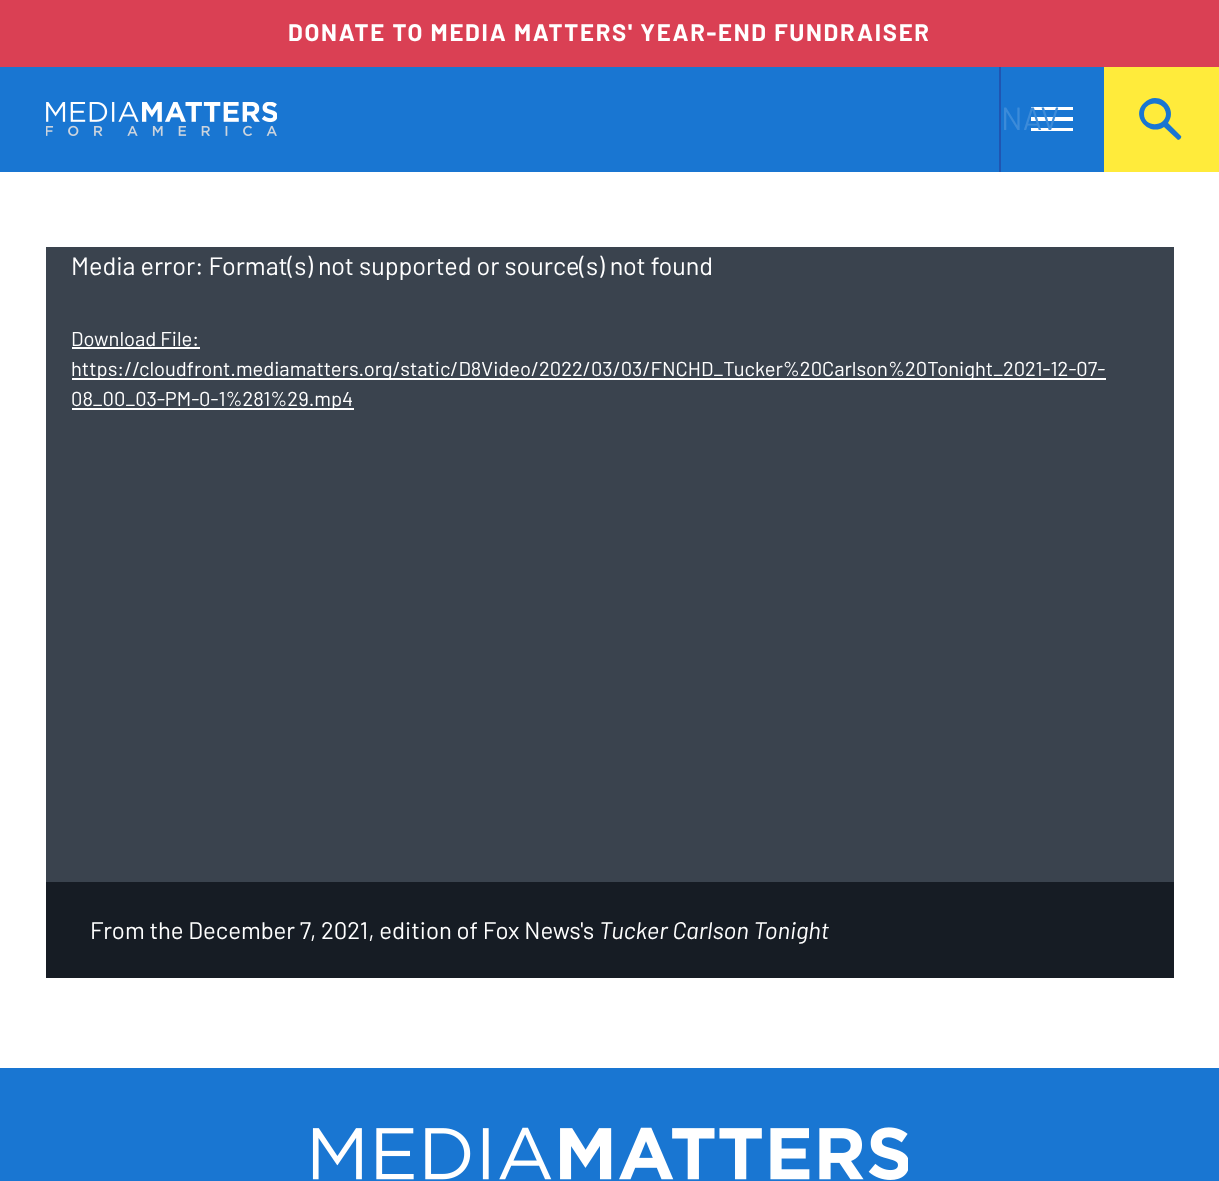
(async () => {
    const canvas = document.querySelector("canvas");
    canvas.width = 1219;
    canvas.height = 1181;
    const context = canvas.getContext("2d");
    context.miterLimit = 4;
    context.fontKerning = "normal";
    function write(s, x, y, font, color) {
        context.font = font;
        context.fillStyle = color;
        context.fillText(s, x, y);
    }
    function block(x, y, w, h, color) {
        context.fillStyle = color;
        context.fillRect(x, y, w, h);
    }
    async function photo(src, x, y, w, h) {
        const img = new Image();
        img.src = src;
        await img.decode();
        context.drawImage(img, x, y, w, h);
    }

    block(0, 0, 1219, 1181, "rgb(255, 255, 255)");
    block(0, 0, 1219, 67, "rgb(218, 64, 84)");
    context.letterSpacing = "1.75px";
    write("DONATE TO MEDIA MATTERS' YEAR-END FUNDRAISER", 288, 41, "bold 23.9px Barlow", "rgb(255, 255, 255)");
    block(0, 67, 1104, 105, "rgb(25, 118, 210)");
    await photo("media/1.png", 46, 102, 231, 34);
    context.fillStyle = "rgb(255, 255, 255)";
    context.beginPath();
    context.moveTo(1031, 107);
    context.lineTo(1073, 107);
    context.lineTo(1073, 110);
    context.lineTo(1031, 110);
    context.closePath();
    context.moveTo(1031, 117);
    context.lineTo(1073, 117);
    context.lineTo(1073, 121);
    context.lineTo(1031, 121);
    context.closePath();
    context.moveTo(1031, 128);
    context.lineTo(1073, 128);
    context.lineTo(1073, 131);
    context.lineTo(1031, 131);
    context.closePath();
    context.fill("evenodd");
    block(999, 67, 2, 105, "rgb(32, 85, 178)");
    context.letterSpacing = "0px";
    write("NAV", 1001, 130, "32px Barlow", "rgb(60, 139, 217)");
    block(1104, 67, 115, 105, "rgb(255, 235, 59)");
    context.fillStyle = "rgb(25, 118, 210)";
    context.beginPath();
    context.moveTo(1144, 114);
    context.bezierCurveTo(1144, 100, 1165, 100, 1166, 114);
    context.bezierCurveTo(1166, 127, 1144, 128, 1144, 114);
    context.moveTo(1181, 136);
    context.lineTo(1168, 123);
    context.bezierCurveTo(1179, 108, 1158, 89, 1144, 103);
    context.bezierCurveTo(1130, 116, 1149, 137, 1164, 127);
    context.lineTo(1178, 140);
    context.bezierCurveTo(1180, 140, 1182, 137, 1181, 136);
    context.fill("evenodd");
    block(46, 247, 1128, 635, "rgb(58, 67, 78)");
    write("Media error: Format(s) not supported or source(s) not found", 71, 275, "25.2px Barlow", "rgb(255, 255, 255)");
    write("Download File:", 71, 346, "20.15px Barlow", "rgb(255, 255, 255)");
    block(72, 347, 128, 2, "rgb(255, 255, 255)");
    block(72, 378, 1034, 2, "rgb(255, 255, 255)");
    write("https://cloudfront.mediamatters.org/static/D8Video/2022/03/03/FNCHD_Tucker%20Carlson%20Tonight_2021-12-07-", 71, 376, "20.15px Barlow", "rgb(255, 255, 255)");
    block(72, 408, 282, 2, "rgb(255, 255, 255)");
    write("08_00_03-PM-0-1%281%29.mp4", 71, 406, "20.15px Barlow", "rgb(255, 255, 255)");
    block(46, 882, 1128, 96, "rgb(22, 28, 36)");
    write("From the December 7, 2021, edition of Fox News's", 90, 939, "23.9px Barlow", "rgb(255, 255, 255)");
    write("Tucker Carlson Tonight", 599, 939, "italic 23.9px Barlow", "rgb(255, 255, 255)");
    block(0, 1068, 1219, 113, "rgb(25, 118, 210)");
    await photo("media/2.png", 312, 1127, 596, 53);
})();
